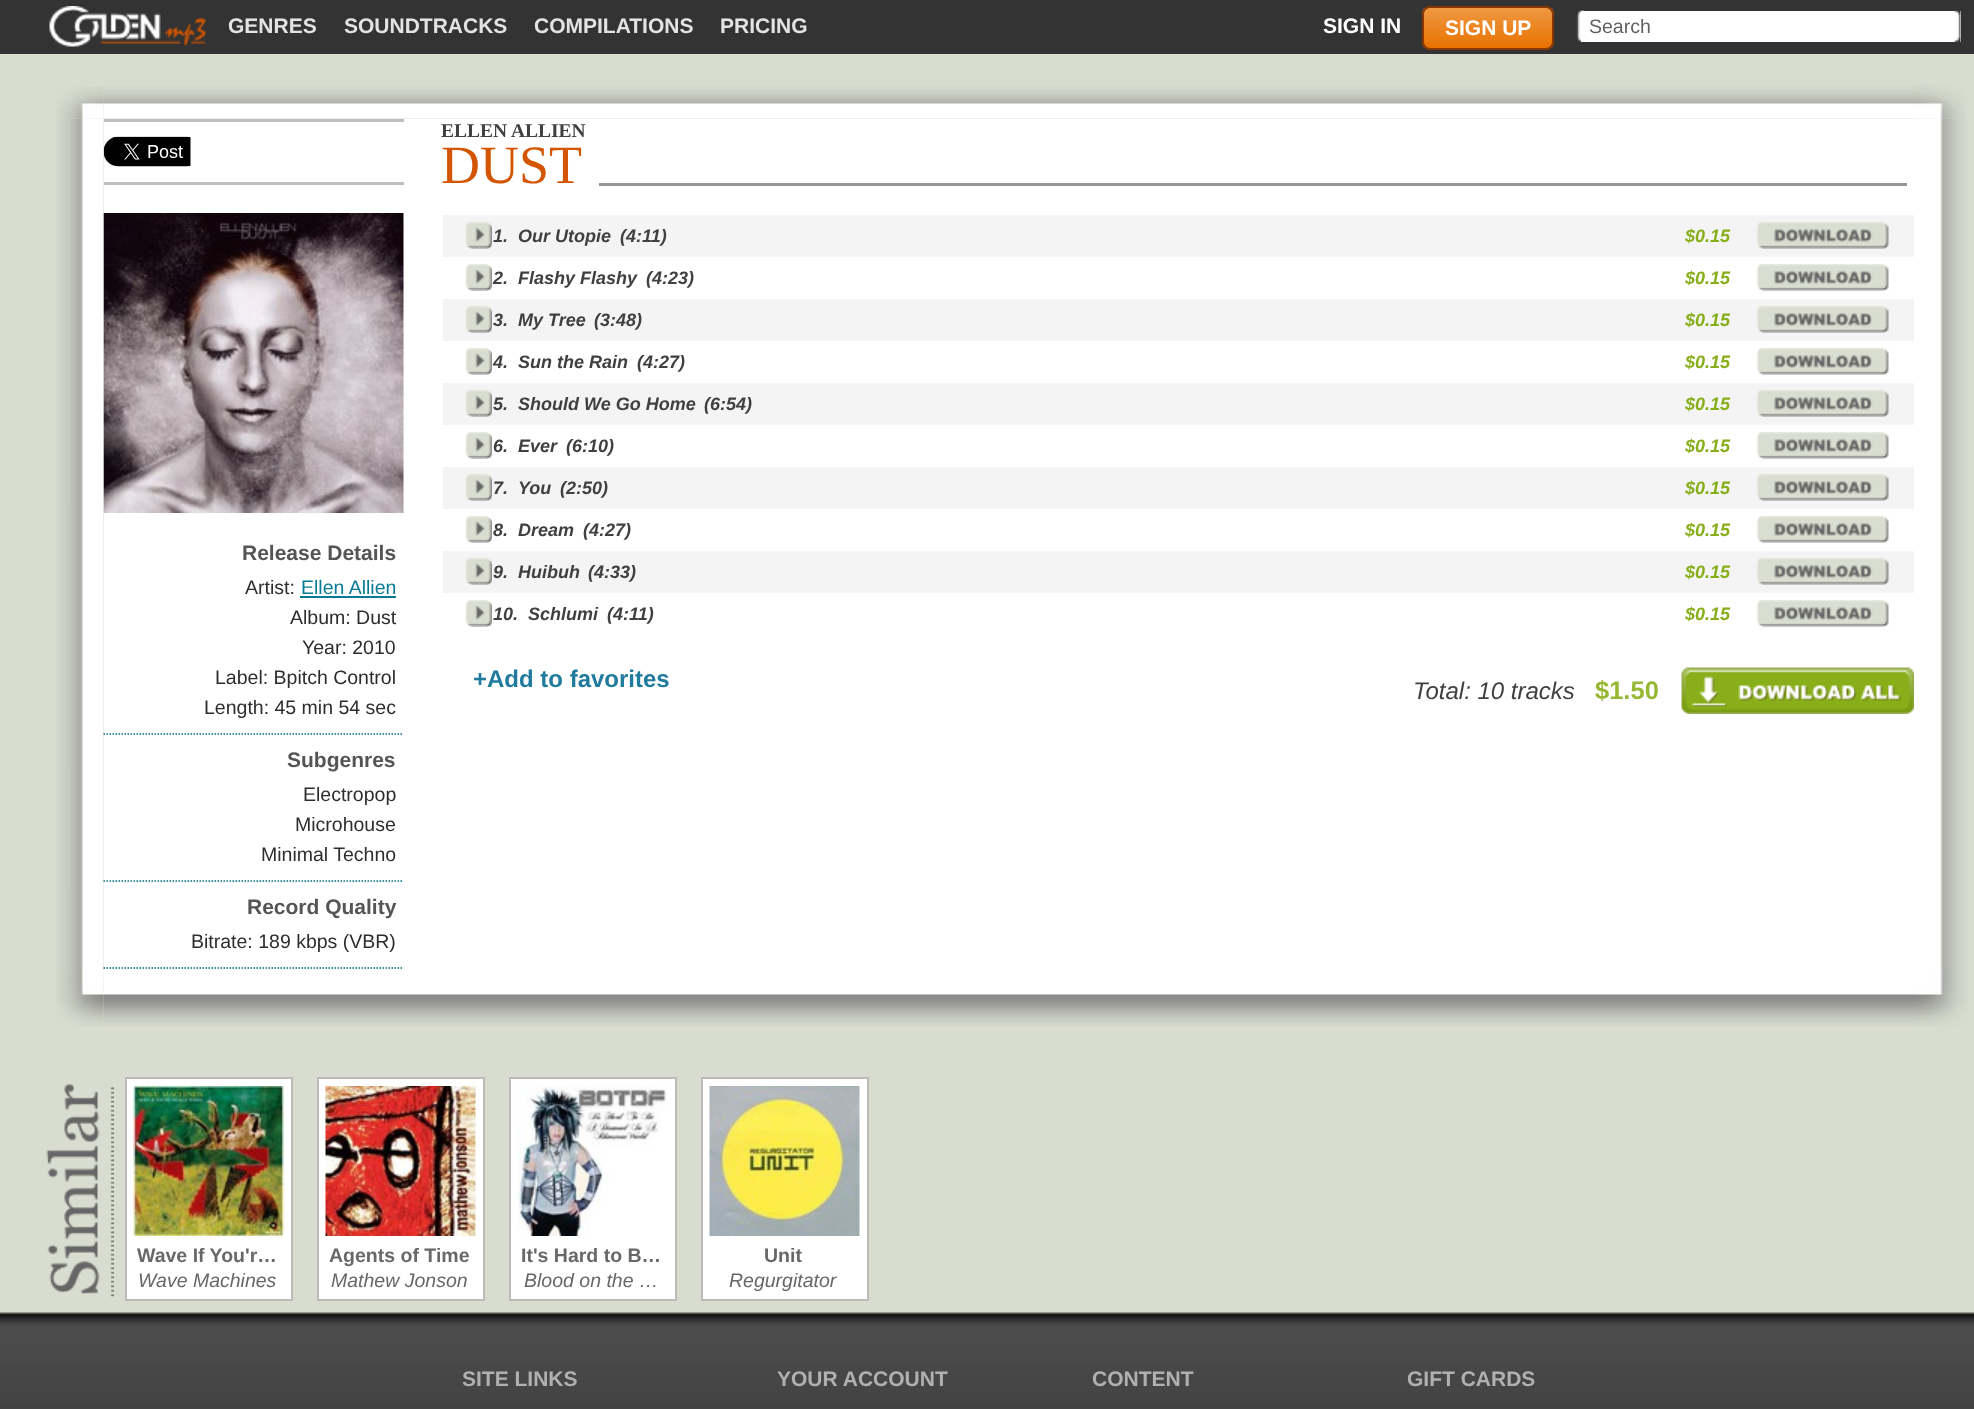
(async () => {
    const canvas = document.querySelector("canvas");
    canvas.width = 1974;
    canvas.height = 1409;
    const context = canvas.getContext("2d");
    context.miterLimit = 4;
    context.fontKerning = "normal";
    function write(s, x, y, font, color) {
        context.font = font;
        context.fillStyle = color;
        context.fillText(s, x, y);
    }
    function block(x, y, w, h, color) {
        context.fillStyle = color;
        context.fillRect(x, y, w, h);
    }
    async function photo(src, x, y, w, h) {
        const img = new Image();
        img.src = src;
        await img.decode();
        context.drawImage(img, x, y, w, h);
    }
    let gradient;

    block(0, 0, 1974, 1409, "rgb(217, 221, 207)");
    block(0, 0, 1974, 54, "rgb(51, 51, 51)");
    await photo("media/1.png", 49, 6, 157, 41);
    write("GENRES", 228, 33, "bold 21px Liberation Sans", "rgb(227, 227, 227)");
    write("SOUNDTRACKS", 344, 33, "bold 21px Liberation Sans", "rgb(227, 227, 227)");
    write("COMPILATIONS", 534, 33, "bold 21px Liberation Sans", "rgb(227, 227, 227)");
    write("PRICING", 720, 33, "bold 21px Liberation Sans", "rgb(227, 227, 227)");
    write("SIGN IN", 1323, 33, "bold 21px Liberation Sans", "rgb(255, 255, 255)");
    context.save();
    context.beginPath();
    context.roundRect(1422, 6, 132, 44, 8);
    context.clip();
    gradient = context.createLinearGradient(1488, 7.5, 1488, 48);
    gradient.addColorStop(0, "rgb(239, 152, 67)");
    gradient.addColorStop(1, "rgb(233, 115, 0)");
    context.fillStyle = gradient;
    context.fillRect(1422, 8, 132, 40);
    context.restore();
    context.beginPath();
    context.roundRect(1423, 7, 130, 42, 7);
    context.strokeStyle = "rgb(136, 55, 2)";
    context.lineWidth = 2;
    context.stroke();
    write("SIGN UP", 1445, 35, "bold 21px Liberation Sans", "rgb(255, 255, 255)");
    await photo("media/2.png", 1576, 10, 9, 32);
    block(1581, 11, 380, 31, "rgb(255, 255, 255)");
    await photo("media/3.png", 1954, 10, 7, 32);
    write("Search", 1589, 33, "19.5px Liberation Sans", "rgb(98, 97, 97)");
    await photo("media/4.png", 56, 86, 48, 33);
    await photo("media/5.png", 103, 86, 1811, 33);
    await photo("media/6.png", 1914, 84, 53, 35);
    await photo("media/7.png", 56, 118, 48, 851);
    block(104, 119, 1810, 850, "rgb(255, 255, 255)");
    block(104, 119, 300, 3, "rgb(190, 190, 190)");
    block(104, 182, 300, 3, "rgb(190, 190, 190)");
    await photo("media/8.png", 103, 136, 88, 31);
    write("ELLEN ALLIEN", 441, 137, "bold 19.5px Liberation Serif", "rgb(65, 63, 63)");
    write("DUST", 441, 183, "54px Liberation Serif", "rgb(212, 85, 0)");
    block(599, 183, 1308, 3, "rgb(150, 150, 150)");
    block(443, 215, 1471, 42, "rgb(244, 244, 244)");
    await photo("media/9.png", 465, 222, 27, 27);
    write("1.", 493, 242, "italic bold 18px Liberation Sans", "rgb(65, 63, 63)");
    write("Our Utopie", 518, 242, "italic bold 18px Liberation Sans", "rgb(65, 63, 63)");
    write("(4:11)", 620, 242, "italic bold 18px Liberation Sans", "rgb(65, 63, 63)");
    write("$0.15", 1685, 242, "italic bold 18px Liberation Sans", "rgb(136, 175, 25)");
    await photo("media/10.png", 1756, 222, 133, 27);
    await photo("media/11.png", 465, 264, 27, 27);
    write("2.", 493, 284, "italic bold 18px Liberation Sans", "rgb(65, 63, 63)");
    write("Flashy Flashy", 518, 284, "italic bold 18px Liberation Sans", "rgb(65, 63, 63)");
    write("(4:23)", 646, 284, "italic bold 18px Liberation Sans", "rgb(65, 63, 63)");
    write("$0.15", 1685, 284, "italic bold 18px Liberation Sans", "rgb(136, 175, 25)");
    await photo("media/12.png", 1756, 264, 133, 27);
    block(443, 299, 1471, 42, "rgb(244, 244, 244)");
    await photo("media/9.png", 465, 306, 27, 27);
    write("3.", 493, 326, "italic bold 18px Liberation Sans", "rgb(65, 63, 63)");
    write("My Tree", 518, 326, "italic bold 18px Liberation Sans", "rgb(65, 63, 63)");
    write("(3:48)", 594, 326, "italic bold 18px Liberation Sans", "rgb(65, 63, 63)");
    write("$0.15", 1685, 326, "italic bold 18px Liberation Sans", "rgb(136, 175, 25)");
    await photo("media/10.png", 1756, 306, 133, 27);
    await photo("media/11.png", 465, 348, 27, 27);
    write("4.", 493, 368, "italic bold 18px Liberation Sans", "rgb(65, 63, 63)");
    write("Sun the Rain", 518, 368, "italic bold 18px Liberation Sans", "rgb(65, 63, 63)");
    write("(4:27)", 637, 368, "italic bold 18px Liberation Sans", "rgb(65, 63, 63)");
    write("$0.15", 1685, 368, "italic bold 18px Liberation Sans", "rgb(136, 175, 25)");
    await photo("media/12.png", 1756, 348, 133, 27);
    block(443, 383, 1471, 42, "rgb(244, 244, 244)");
    await photo("media/9.png", 465, 390, 27, 27);
    write("5.", 493, 410, "italic bold 18px Liberation Sans", "rgb(65, 63, 63)");
    write("Should We Go Home", 518, 410, "italic bold 18px Liberation Sans", "rgb(65, 63, 63)");
    write("(6:54)", 704, 410, "italic bold 18px Liberation Sans", "rgb(65, 63, 63)");
    write("$0.15", 1685, 410, "italic bold 18px Liberation Sans", "rgb(136, 175, 25)");
    await photo("media/10.png", 1756, 390, 133, 27);
    await photo("media/11.png", 465, 432, 27, 27);
    write("6.", 493, 452, "italic bold 18px Liberation Sans", "rgb(65, 63, 63)");
    write("Ever", 518, 452, "italic bold 18px Liberation Sans", "rgb(65, 63, 63)");
    write("(6:10)", 566, 452, "italic bold 18px Liberation Sans", "rgb(65, 63, 63)");
    write("$0.15", 1685, 452, "italic bold 18px Liberation Sans", "rgb(136, 175, 25)");
    await photo("media/12.png", 1756, 432, 133, 27);
    block(443, 467, 1471, 42, "rgb(244, 244, 244)");
    await photo("media/9.png", 465, 474, 27, 27);
    write("7.", 493, 494, "italic bold 18px Liberation Sans", "rgb(65, 63, 63)");
    write("You", 518, 494, "italic bold 18px Liberation Sans", "rgb(65, 63, 63)");
    write("(2:50)", 560, 494, "italic bold 18px Liberation Sans", "rgb(65, 63, 63)");
    write("$0.15", 1685, 494, "italic bold 18px Liberation Sans", "rgb(136, 175, 25)");
    await photo("media/10.png", 1756, 474, 133, 27);
    await photo("media/11.png", 465, 516, 27, 27);
    write("8.", 493, 536, "italic bold 18px Liberation Sans", "rgb(65, 63, 63)");
    write("Dream", 518, 536, "italic bold 18px Liberation Sans", "rgb(65, 63, 63)");
    write("(4:27)", 583, 536, "italic bold 18px Liberation Sans", "rgb(65, 63, 63)");
    write("$0.15", 1685, 536, "italic bold 18px Liberation Sans", "rgb(136, 175, 25)");
    await photo("media/12.png", 1756, 516, 133, 27);
    block(443, 551, 1471, 42, "rgb(244, 244, 244)");
    await photo("media/9.png", 465, 558, 27, 27);
    write("9.", 493, 578, "italic bold 18px Liberation Sans", "rgb(65, 63, 63)");
    write("Huibuh", 518, 578, "italic bold 18px Liberation Sans", "rgb(65, 63, 63)");
    write("(4:33)", 588, 578, "italic bold 18px Liberation Sans", "rgb(65, 63, 63)");
    write("$0.15", 1685, 578, "italic bold 18px Liberation Sans", "rgb(136, 175, 25)");
    await photo("media/10.png", 1756, 558, 133, 27);
    await photo("media/11.png", 465, 600, 27, 27);
    write("10.", 493, 620, "italic bold 18px Liberation Sans", "rgb(65, 63, 63)");
    write("Schlumi", 528, 620, "italic bold 18px Liberation Sans", "rgb(65, 63, 63)");
    write("(4:11)", 607, 620, "italic bold 18px Liberation Sans", "rgb(65, 63, 63)");
    write("$0.15", 1685, 620, "italic bold 18px Liberation Sans", "rgb(136, 175, 25)");
    await photo("media/12.png", 1756, 600, 133, 27);
    write("+Add to favorites", 473, 687, "bold 24px Liberation Sans", "rgb(32, 123, 159)");
    write("Total: 10 tracks", 1413, 699, "italic 24px Liberation Sans", "rgb(65, 63, 63)");
    write("$1.50", 1595, 699, "bold 25.5px Liberation Sans", "rgb(150, 184, 51)");
    await photo("media/13.png", 1681, 667, 233, 47);
    await photo("media/14.png", 103, 213, 301, 300);
    context.beginPath();
    context.moveTo(103.5, 734);
    context.lineTo(403.5, 734);
    context.strokeStyle = "rgb(0, 107, 136)";
    context.lineWidth = 1.5;
    context.setLineDash([1.5, 1.5]);
    context.stroke();
    write("Release Details", 242, 560, "bold 21px Liberation Sans", "rgb(85, 85, 85)");
    write("Artist:", 245, 594, "19.5px Liberation Sans", "rgb(45, 45, 45)");
    write("Ellen Allien", 301, 594, "19.5px Liberation Sans", "rgb(7, 123, 149)");
    block(300, 596, 96, 2, "rgb(7, 123, 149)");
    write("Album: Dust", 290, 624, "19.5px Liberation Sans", "rgb(45, 45, 45)");
    write("Year: 2010", 302, 654, "19.5px Liberation Sans", "rgb(45, 45, 45)");
    write("Label: Bpitch Control", 215, 684, "19.5px Liberation Sans", "rgb(45, 45, 45)");
    write("Length: 45 min 54 sec", 204, 714, "19.5px Liberation Sans", "rgb(45, 45, 45)");
    context.beginPath();
    context.moveTo(103.5, 881);
    context.lineTo(403.5, 881);
    context.stroke();
    write("Subgenres", 287, 767, "bold 21px Liberation Sans", "rgb(85, 85, 85)");
    write("Electropop", 303, 801, "19.5px Liberation Sans", "rgb(45, 45, 45)");
    write("Microhouse", 295, 831, "19.5px Liberation Sans", "rgb(45, 45, 45)");
    write("Minimal Techno", 261, 861, "19.5px Liberation Sans", "rgb(45, 45, 45)");
    context.beginPath();
    context.moveTo(103.5, 968);
    context.lineTo(403.5, 968);
    context.stroke();
    write("Record Quality", 247, 914, "bold 21px Liberation Sans", "rgb(85, 85, 85)");
    write("Bitrate: 189 kbps (VBR)", 191, 948, "19.5px Liberation Sans", "rgb(45, 45, 45)");
    await photo("media/15.png", 1914, 118, 54, 851);
    await photo("media/16.png", 56, 969, 48, 58);
    await photo("media/17.png", 103, 969, 1811, 58);
    await photo("media/18.png", 1914, 969, 54, 58);
    await photo("media/19.png", 46, 1084, 68, 213);
    context.fillStyle = "rgb(255, 255, 255)";
    context.beginPath();
    context.rect(126, 1078, 166, 222);
    context.fill();
    context.strokeStyle = "rgb(190, 186, 186)";
    context.lineWidth = 2;
    context.setLineDash([]);
    context.stroke();
    await photo("media/20.png", 133, 1086, 151, 150);
    write("Wave If You'r…", 137, 1262, "bold 19.5px Liberation Sans", "rgb(105, 103, 103)");
    write("Wave Machines", 138, 1287, "italic 19.5px Liberation Sans", "rgb(105, 103, 103)");
    context.fillStyle = "rgb(255, 255, 255)";
    context.beginPath();
    context.rect(318, 1078, 166, 222);
    context.fill();
    context.stroke();
    await photo("media/21.png", 325, 1086, 151, 150);
    write("Agents of Time", 329, 1262, "bold 19.5px Liberation Sans", "rgb(105, 103, 103)");
    write("Mathew Jonson", 331, 1287, "italic 19.5px Liberation Sans", "rgb(105, 103, 103)");
    context.fillStyle = "rgb(255, 255, 255)";
    context.beginPath();
    context.rect(510, 1078, 166, 222);
    context.fill();
    context.stroke();
    await photo("media/22.png", 517, 1086, 150, 150);
    write("It's Hard to B…", 521, 1262, "bold 19.5px Liberation Sans", "rgb(105, 103, 103)");
    write("Blood on the …", 524, 1287, "italic 19.5px Liberation Sans", "rgb(105, 103, 103)");
    context.fillStyle = "rgb(255, 255, 255)";
    context.beginPath();
    context.rect(702, 1078, 166, 222);
    context.fill();
    context.stroke();
    await photo("media/23.png", 709, 1086, 151, 150);
    write("Unit", 764, 1262, "bold 19.5px Liberation Sans", "rgb(105, 103, 103)");
    write("Regurgitator", 729, 1287, "italic 19.5px Liberation Sans", "rgb(105, 103, 103)");
    await photo("media/24.png", 0, 1312, 1974, 97);
    write("SITE LINKS", 462, 1386, "bold 21px Liberation Sans", "rgb(177, 175, 175)");
    write("YOUR ACCOUNT", 777, 1386, "bold 21px Liberation Sans", "rgb(177, 175, 175)");
    write("CONTENT", 1092, 1386, "bold 21px Liberation Sans", "rgb(177, 175, 175)");
    write("GIFT CARDS", 1407, 1386, "bold 21px Liberation Sans", "rgb(177, 175, 175)");
})();
